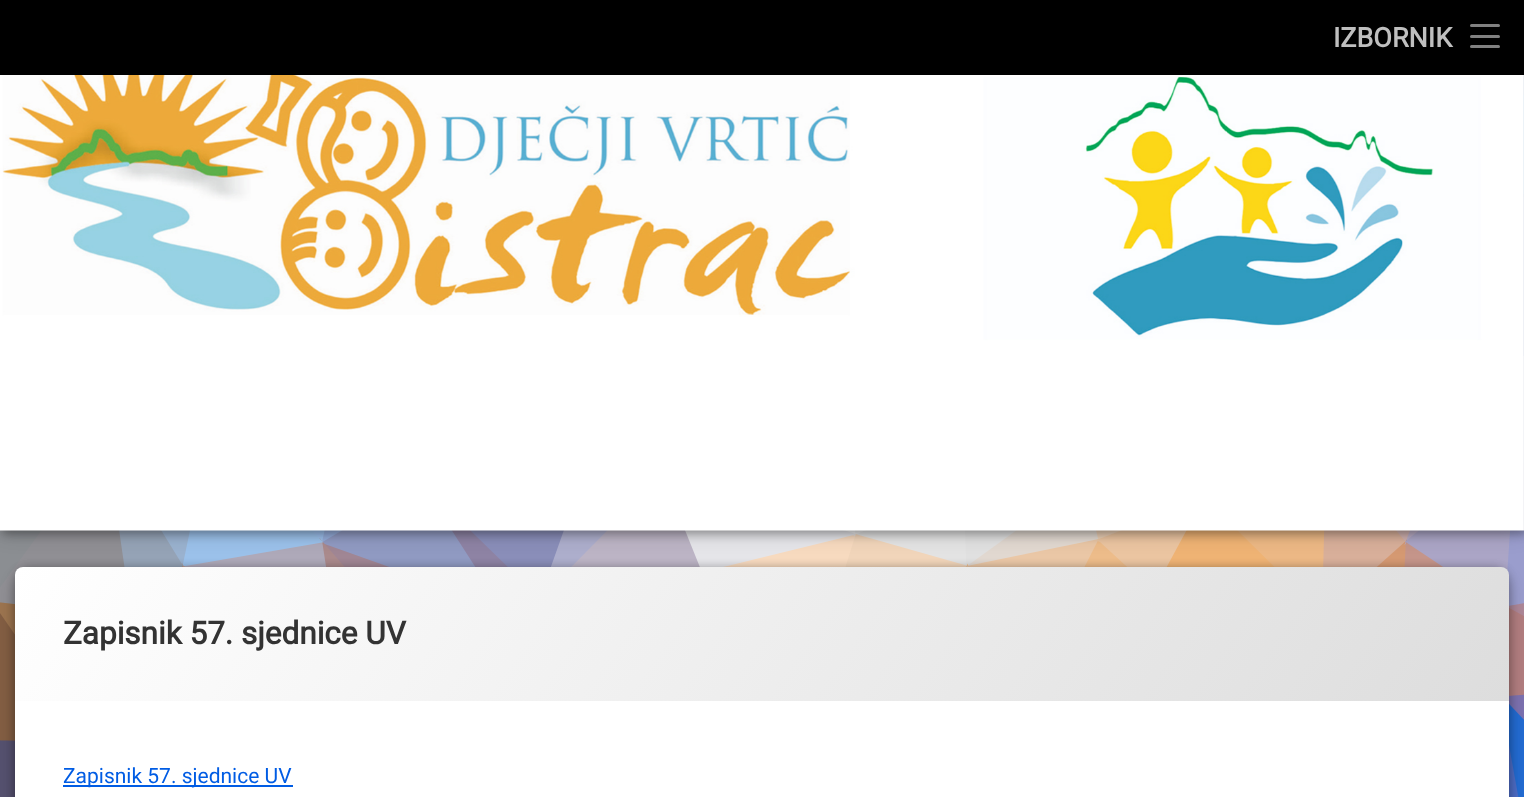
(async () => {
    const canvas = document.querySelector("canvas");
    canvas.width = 1524;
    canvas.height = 797;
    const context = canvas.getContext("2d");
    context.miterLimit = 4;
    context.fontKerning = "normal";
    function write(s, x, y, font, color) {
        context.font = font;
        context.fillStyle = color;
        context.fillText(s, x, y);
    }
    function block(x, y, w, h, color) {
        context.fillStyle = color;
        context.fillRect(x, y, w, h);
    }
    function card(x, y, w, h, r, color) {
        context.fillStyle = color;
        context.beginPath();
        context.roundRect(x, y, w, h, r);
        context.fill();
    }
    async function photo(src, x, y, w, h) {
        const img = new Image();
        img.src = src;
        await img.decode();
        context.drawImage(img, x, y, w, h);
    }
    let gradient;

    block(0, 0, 1524, 797, "rgb(255, 255, 255)");
    await photo("media/2.png", 0, 75, 1524, 722);
    context.fillStyle = "rgba(0, 0, 0, 0.3)";
    context.filter = "blur(5px)";
    context.beginPath();
    context.rect(3, 56, 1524, 478);
    context.fill();
    context.filter = "none";
    context.fillStyle = "rgba(0, 0, 0, 0.2)";
    context.filter = "blur(11px)";
    context.beginPath();
    context.rect(0, 53, 1524, 478);
    context.fill();
    context.filter = "none";
    block(0, 0, 1524, 75, "rgb(0, 0, 0)");
    write("IZBORNIK", 1333, 47, "bold 27px Roboto", "rgb(191, 191, 191)");
    card(1470, 24, 30, 3, 1.5, "rgb(128, 128, 128)");
    card(1470, 35, 30, 3, 1.5, "rgb(128, 128, 128)");
    card(1470, 45, 30, 3, 1.5, "rgb(128, 128, 128)");
    await photo("media/1.png", 0, 75, 1524, 456);
    context.fillStyle = "rgba(0, 0, 0, 0.25)";
    context.filter = "blur(4px)";
    context.beginPath();
    context.roundRect(15, 567, 1494, 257, 15);
    context.fill();
    context.filter = "none";
    context.filter = "blur(7.5px)";
    context.beginPath();
    context.roundRect(15, 575, 1494, 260, 15);
    context.fill();
    context.filter = "none";
    context.fillStyle = "rgb(255, 255, 255)";
    context.beginPath();
    context.moveTo(30, 567);
    context.lineTo(1494, 567);
    context.bezierCurveTo(1502.5, 567, 1509, 573.5, 1509, 582);
    context.lineTo(1509, 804);
    context.bezierCurveTo(1509, 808.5, 1505.5, 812, 1501, 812);
    context.lineTo(23, 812);
    context.bezierCurveTo(18.5, 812, 15, 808.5, 15, 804);
    context.lineTo(15, 582);
    context.bezierCurveTo(15, 573.5, 21.5, 567, 30, 567);
    context.closePath();
    context.fill();
    gradient = context.createLinearGradient(229, 261, 1295, 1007);
    gradient.addColorStop(0, "rgb(255, 255, 255)");
    gradient.addColorStop(1, "rgb(221, 221, 221)");
    context.fillStyle = gradient;
    context.beginPath();
    context.roundRect(15, 567, 1494, 134, [8, 8, 0, 0]);
    context.fill();
    write("Zapisnik 57. sjednice UV", 63, 644, "bold 31.5px Roboto", "rgb(51, 51, 51)");
    block(63, 785, 230, 2, "rgb(0, 92, 228)");
    write("Zapisnik 57. sjednice UV", 63, 783, "21px Roboto", "rgb(0, 92, 228)");
})();
